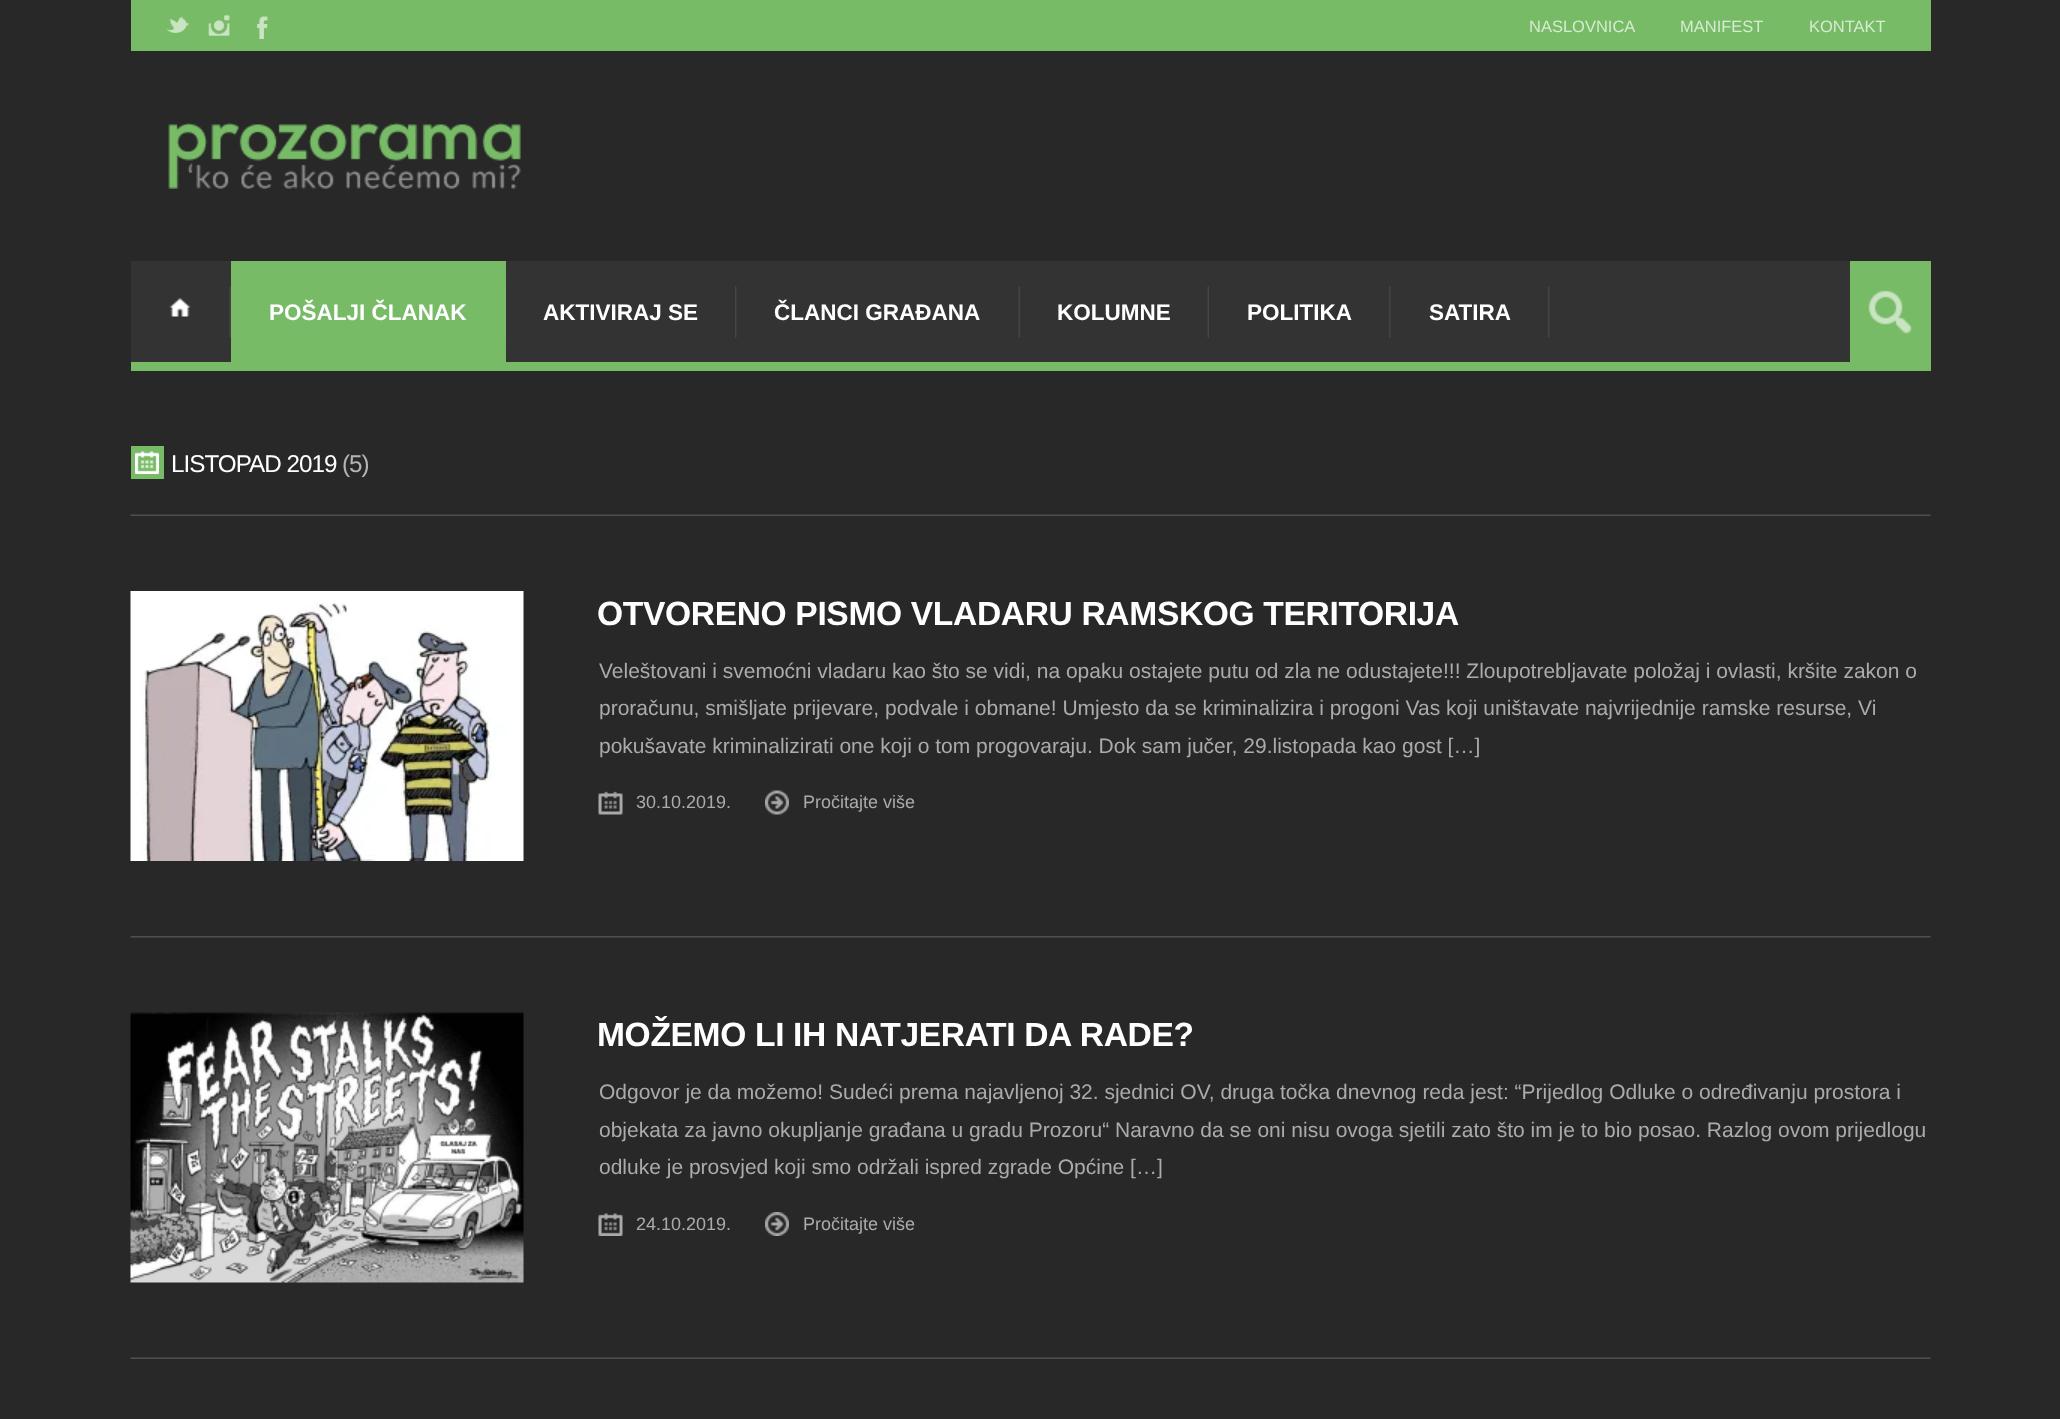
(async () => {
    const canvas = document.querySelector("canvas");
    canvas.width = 2060;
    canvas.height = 1419;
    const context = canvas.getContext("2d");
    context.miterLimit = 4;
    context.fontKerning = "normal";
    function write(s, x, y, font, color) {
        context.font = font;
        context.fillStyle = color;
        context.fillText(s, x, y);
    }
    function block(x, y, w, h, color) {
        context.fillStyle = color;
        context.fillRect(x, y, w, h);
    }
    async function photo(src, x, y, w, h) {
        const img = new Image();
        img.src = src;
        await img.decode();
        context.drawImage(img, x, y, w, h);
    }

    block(0, 0, 2060, 1419, "rgb(40, 40, 40)");
    block(131, 0, 1800, 51, "rgb(119, 187, 102)");
    await photo("media/1.png", 166, 17, 23, 16);
    await photo("media/2.png", 208, 15, 22, 21);
    await photo("media/3.png", 256, 16, 12, 23);
    write("NASLOVNICA", 1529, 32, "16.5px Liberation Sans", "rgb(214, 235, 209)");
    write("MANIFEST", 1680, 32, "16.5px Liberation Sans", "rgb(214, 235, 209)");
    write("KONTAKT", 1809, 32, "16.5px Liberation Sans", "rgb(214, 235, 209)");
    await photo("media/4.png", 168, 123, 353, 66);
    block(131, 261, 1719, 101, "rgb(51, 51, 51)");
    block(131, 362, 1800, 9, "rgb(119, 187, 102)");
    await photo("media/5.png", 229, 286, 2, 52);
    await photo("media/6.png", 169, 298, 22, 19);
    block(231, 261, 275, 101, "rgb(119, 187, 102)");
    await photo("media/7.png", 504, 286, 2, 52);
    write("POŠALJI ČLANAK", 269, 320, "bold 22.5px Liberation Sans", "rgb(255, 255, 255)");
    await photo("media/8.png", 735, 286, 2, 52);
    write("AKTIVIRAJ SE", 543, 320, "bold 22.5px Liberation Sans", "rgb(255, 255, 255)");
    await photo("media/5.png", 1018, 286, 2, 52);
    write("ČLANCI GRAĐANA", 774, 320, "bold 22.5px Liberation Sans", "rgb(255, 255, 255)");
    await photo("media/5.png", 1207, 286, 2, 52);
    write("KOLUMNE", 1057, 320, "bold 22.5px Liberation Sans", "rgb(255, 255, 255)");
    await photo("media/8.png", 1389, 286, 2, 52);
    write("POLITIKA", 1247, 320, "bold 22.5px Liberation Sans", "rgb(255, 255, 255)");
    await photo("media/8.png", 1548, 286, 2, 52);
    write("SATIRA", 1429, 320, "bold 22.5px Liberation Sans", "rgb(255, 255, 255)");
    block(1850, 261, 81, 101, "rgb(119, 187, 102)");
    await photo("media/9.png", 1868, 290, 44, 44);
    await photo("media/10.png", 130, 514, 1801, 2);
    block(131, 446, 33, 33, "rgb(119, 187, 102)");
    await photo("media/11.png", 135, 451, 24, 23);
    context.letterSpacing = "-1px";
    write("LISTOPAD 2019", 171, 472, "24.25px Liberation Sans", "rgb(255, 255, 255)");
    write("(5)", 342, 472, "24.25px Liberation Sans", "rgb(180, 180, 180)");
    await photo("media/12.png", 130, 936, 1801, 2);
    await photo("media/13.png", 130, 591, 394, 270);
    context.letterSpacing = "-0.35px";
    write("OTVORENO PISMO VLADARU RAMSKOG TERITORIJA", 597, 625, "bold 33.6px Liberation Sans", "rgb(255, 255, 255)");
    context.letterSpacing = "0px";
    write("Veleštovani i svemoćni vladaru kao što se vidi, na opaku ostajete putu od zla ne odustajete!!! Zloupotrebljavate položaj i ovlasti, kršite zakon o", 599, 678, "21px Liberation Sans", "rgb(171, 171, 171)");
    write("proračunu, smišljate prijevare, podvale i obmane! Umjesto da se kriminalizira i progoni Vas koji uništavate najvrijednije ramske resurse, Vi", 599, 715, "21px Liberation Sans", "rgb(171, 171, 171)");
    write("pokušavate kriminalizirati one koji o tom progovaraju. Dok sam jučer, 29.listopada kao gost […]", 599, 753, "21px Liberation Sans", "rgb(171, 171, 171)");
    await photo("media/14.png", 598, 791, 25, 24);
    write("30.10.2019.", 636, 808, "18px Liberation Sans", "rgb(171, 171, 171)");
    await photo("media/15.png", 765, 790, 24, 25);
    write("Pročitajte više", 803, 808, "18px Liberation Sans", "rgb(171, 171, 171)");
    await photo("media/10.png", 130, 1357, 1801, 2);
    await photo("media/16.png", 130, 1012, 394, 271);
    context.letterSpacing = "-0.35px";
    write("MOŽEMO LI IH NATJERATI DA RADE?", 597, 1046, "bold 33.6px Liberation Sans", "rgb(255, 255, 255)");
    context.letterSpacing = "0px";
    write("Odgovor je da možemo! Sudeći prema najavljenoj 32. sjednici OV, druga točka dnevnog reda jest: “Prijedlog Odluke o određivanju prostora i", 599, 1099, "21px Liberation Sans", "rgb(171, 171, 171)");
    write("objekata za javno okupljanje građana u gradu Prozoru“ Naravno da se oni nisu ovoga sjetili zato što im je to bio posao. Razlog ovom prijedlogu", 599, 1137, "21px Liberation Sans", "rgb(171, 171, 171)");
    write("odluke je prosvjed koji smo održali ispred zgrade Općine […]", 599, 1174, "21px Liberation Sans", "rgb(171, 171, 171)");
    await photo("media/17.png", 598, 1213, 25, 23);
    write("24.10.2019.", 636, 1230, "18px Liberation Sans", "rgb(171, 171, 171)");
    await photo("media/18.png", 765, 1212, 24, 24);
    write("Pročitajte više", 803, 1230, "18px Liberation Sans", "rgb(171, 171, 171)");
})();
